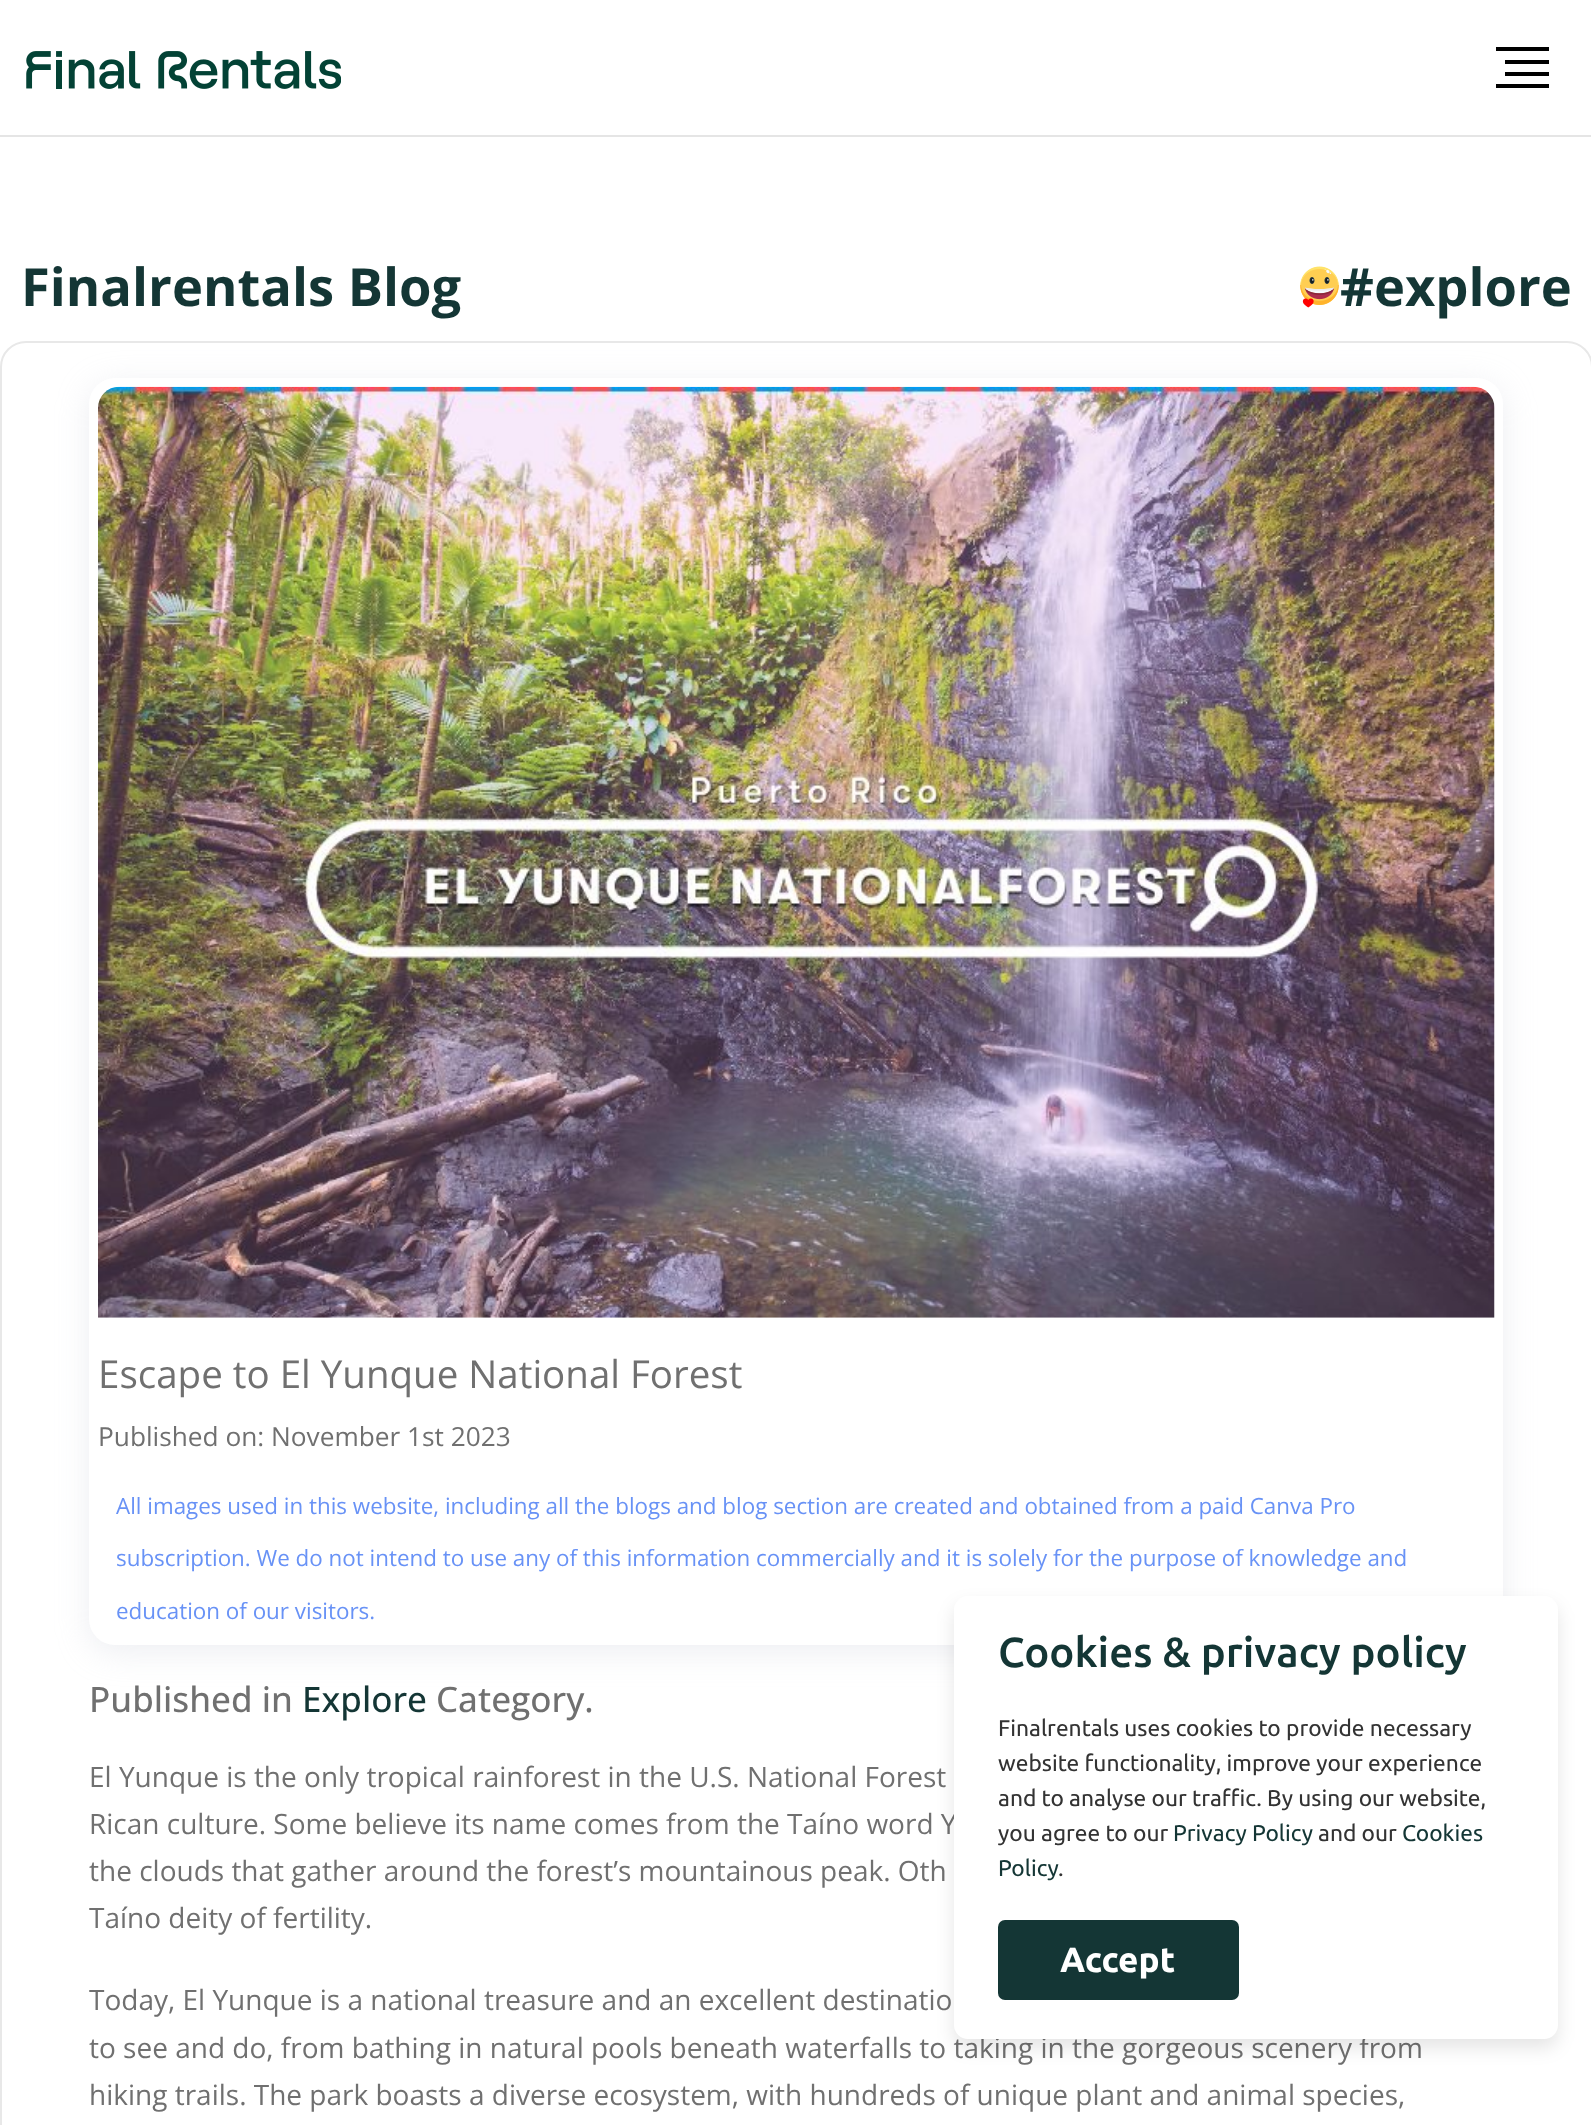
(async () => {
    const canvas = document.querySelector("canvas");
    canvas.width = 1591;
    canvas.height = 2125;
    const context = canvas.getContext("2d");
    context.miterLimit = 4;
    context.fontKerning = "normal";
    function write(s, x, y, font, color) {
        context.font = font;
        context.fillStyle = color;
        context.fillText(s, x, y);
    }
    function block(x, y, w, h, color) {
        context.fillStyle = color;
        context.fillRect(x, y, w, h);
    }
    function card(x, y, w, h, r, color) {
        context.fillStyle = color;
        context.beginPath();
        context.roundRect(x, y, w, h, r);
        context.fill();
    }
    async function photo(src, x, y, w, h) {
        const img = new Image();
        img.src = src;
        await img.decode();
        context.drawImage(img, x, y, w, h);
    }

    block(0, 0, 1591, 2125, "rgb(255, 255, 255)");
    block(0, 135, 1591, 2, "rgb(229, 229, 229)");
    await photo("media/1.png", 26, 51, 315, 38);
    block(1496, 47, 53, 4, "rgb(0, 0, 0)");
    block(1505, 60, 44, 4, "rgb(0, 0, 0)");
    block(1505, 72, 44, 4, "rgb(0, 0, 0)");
    block(1496, 84, 53, 4, "rgb(0, 0, 0)");
    write("Finalrentals Blog", 21, 306, "bold 52.5px Open Sans", "rgb(20, 54, 53)");
    await photo("media/2.png", 1300, 266, 39, 42);
    write("#explore", 1340, 306, "bold 52.5px Open Sans", "rgb(20, 54, 53)");
    context.beginPath();
    context.roundRect(1, 342, 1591, 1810, 25);
    context.strokeStyle = "rgb(232, 232, 232)";
    context.lineWidth = 2;
    context.stroke();
    context.fillStyle = "rgba(194, 200, 213, 0.3)";
    context.filter = "blur(16px)";
    context.beginPath();
    context.roundRect(89, 385, 1414, 1267, 26);
    context.fill();
    context.filter = "none";
    card(89, 378, 1414, 1267, 26, "rgb(255, 255, 255)");
    await photo("media/3.png", 98, 386, 1397, 932);
    write("Escape to El Yunque National Forest", 98, 1388, "38.5px Open Sans", "rgb(112, 112, 112)");
    write("Published on: November 1st 2023", 98, 1446, "26.25px Open Sans", "rgb(112, 112, 112)");
    write("All images used in this website, including all the blogs and blog section are created and obtained from a paid Canva Pro", 116, 1514, "22.4px Open Sans", "rgb(104, 146, 246)");
    write("subscription. We do not intend to use any of this information commercially and it is solely for the purpose of knowledge and", 116, 1566, "22.4px Open Sans", "rgb(104, 146, 246)");
    write("education of our visitors.", 116, 1619, "22.4px Open Sans", "rgb(104, 146, 246)");
    write("Published in", 89, 1712, "500 35px Open Sans", "rgb(112, 112, 112)");
    write("Explore", 302, 1712, "500 35px Open Sans", "rgb(20, 54, 53)");
    write("Category.", 436, 1712, "500 35px Open Sans", "rgb(112, 112, 112)");
    write("El Yunque is the only tropical rainforest in the U.S. National Forest", 89, 1787, "28px Open Sans", "rgb(112, 112, 112)");
    write("Rican culture. Some believe its name comes from the Taíno word Y", 89, 1834, "28px Open Sans", "rgb(112, 112, 112)");
    write("the clouds that gather around the forest’s mountainous peak. Oth", 89, 1881, "28px Open Sans", "rgb(112, 112, 112)");
    write("Taíno deity of fertility.", 89, 1928, "28px Open Sans", "rgb(112, 112, 112)");
    write("Today, El Yunque is a national treasure and an excellent destinatio", 89, 2010, "28px Open Sans", "rgb(112, 112, 112)");
    write("to see and do, from bathing in natural pools beneath waterfalls to taking in the gorgeous scenery from", 89, 2058, "28px Open Sans", "rgb(112, 112, 112)");
    write("hiking trails. The park boasts a diverse ecosystem, with hundreds of unique plant and animal species,", 89, 2105, "28px Open Sans", "rgb(112, 112, 112)");
    context.fillStyle = "rgba(0, 0, 0, 0.1)";
    context.filter = "blur(9px)";
    context.beginPath();
    context.roundRect(954, 1605, 604, 443, 14);
    context.fill();
    context.filter = "none";
    card(954, 1596, 604, 443, 14, "rgb(255, 255, 255)");
    write("Cookies & privacy policy", 998, 1667, "500 42px Ubuntu", "rgb(20, 54, 53)");
    write("Finalrentals uses cookies to provide necessary", 998, 1736, "22.75px Ubuntu", "rgb(51, 51, 51)");
    write("website functionality, improve your experience", 998, 1771, "22.75px Ubuntu", "rgb(51, 51, 51)");
    write("and to analyse our traffic. By using our website,", 998, 1806, "22.75px Ubuntu", "rgb(51, 51, 51)");
    write("you agree to our", 998, 1841, "22.75px Ubuntu", "rgb(51, 51, 51)");
    write("Privacy Policy", 1173, 1841, "22.75px Ubuntu", "rgb(20, 54, 53)");
    write("and our", 1318, 1841, "22.75px Ubuntu", "rgb(51, 51, 51)");
    write("Cookies", 1402, 1841, "22.75px Ubuntu", "rgb(20, 54, 53)");
    write("Policy", 998, 1876, "22.75px Ubuntu", "rgb(20, 54, 53)");
    write(".", 1058, 1876, "22.75px Ubuntu", "rgb(51, 51, 51)");
    card(998, 1920, 241, 80, 7, "rgb(20, 54, 53)");
    write("Accept", 1060, 1972, "bold 35px Ubuntu", "rgb(255, 255, 255)");
})();
